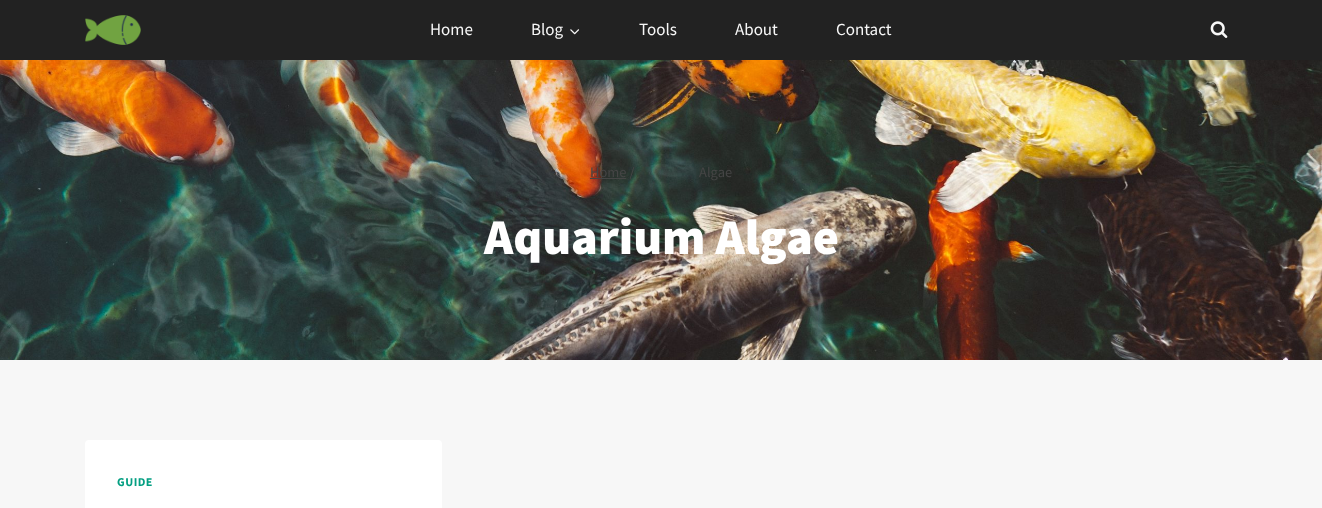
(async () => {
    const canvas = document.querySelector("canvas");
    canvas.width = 1322;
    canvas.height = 508;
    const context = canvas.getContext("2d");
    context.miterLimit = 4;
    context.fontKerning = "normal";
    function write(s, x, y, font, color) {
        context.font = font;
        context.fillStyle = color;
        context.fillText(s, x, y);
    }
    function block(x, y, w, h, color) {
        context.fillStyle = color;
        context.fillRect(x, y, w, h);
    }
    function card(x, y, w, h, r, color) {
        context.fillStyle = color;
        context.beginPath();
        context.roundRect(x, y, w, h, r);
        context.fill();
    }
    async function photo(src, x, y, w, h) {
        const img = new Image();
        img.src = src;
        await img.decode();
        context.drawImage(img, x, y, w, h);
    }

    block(0, 0, 1322, 508, "rgb(247, 247, 247)");
    block(0, 0, 1322, 60, "rgb(34, 34, 34)");
    await photo("media/1.png", 85, 15, 56, 30);
    write("Home", 430, 35, "17px Source Sans Pro", "rgb(247, 247, 247)");
    write("Blog", 531, 35, "17px Source Sans Pro", "rgb(247, 247, 247)");
    await photo("media/2.png", 570, 29, 10, 6);
    write("Tools", 639, 35, "17px Source Sans Pro", "rgb(247, 247, 247)");
    write("About", 735, 35, "17px Source Sans Pro", "rgb(247, 247, 247)");
    write("Contact", 836, 35, "17px Source Sans Pro", "rgb(247, 247, 247)");
    await photo("media/3.png", 1210, 21, 18, 17);
    await photo("media/4.png", 0, 60, 1322, 300);
    block(590, 178, 36, 1, "rgb(69, 69, 69)");
    write("Home /", 590, 177, "14.5px Source Sans Pro", "rgb(69, 69, 69)");
    write("Algae", 699, 177, "14.5px Source Sans Pro", "rgb(69, 69, 69)");
    write("Aquarium Algae", 484, 254, "900 50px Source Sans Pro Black", "rgb(255, 255, 255)");
    card(85, 440, 357, 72, 4, "rgb(255, 255, 255)");
    context.letterSpacing = "0.5px";
    write("GUIDE", 117, 486, "bold 12px Source Sans Pro", "rgb(4, 159, 130)");
})();
